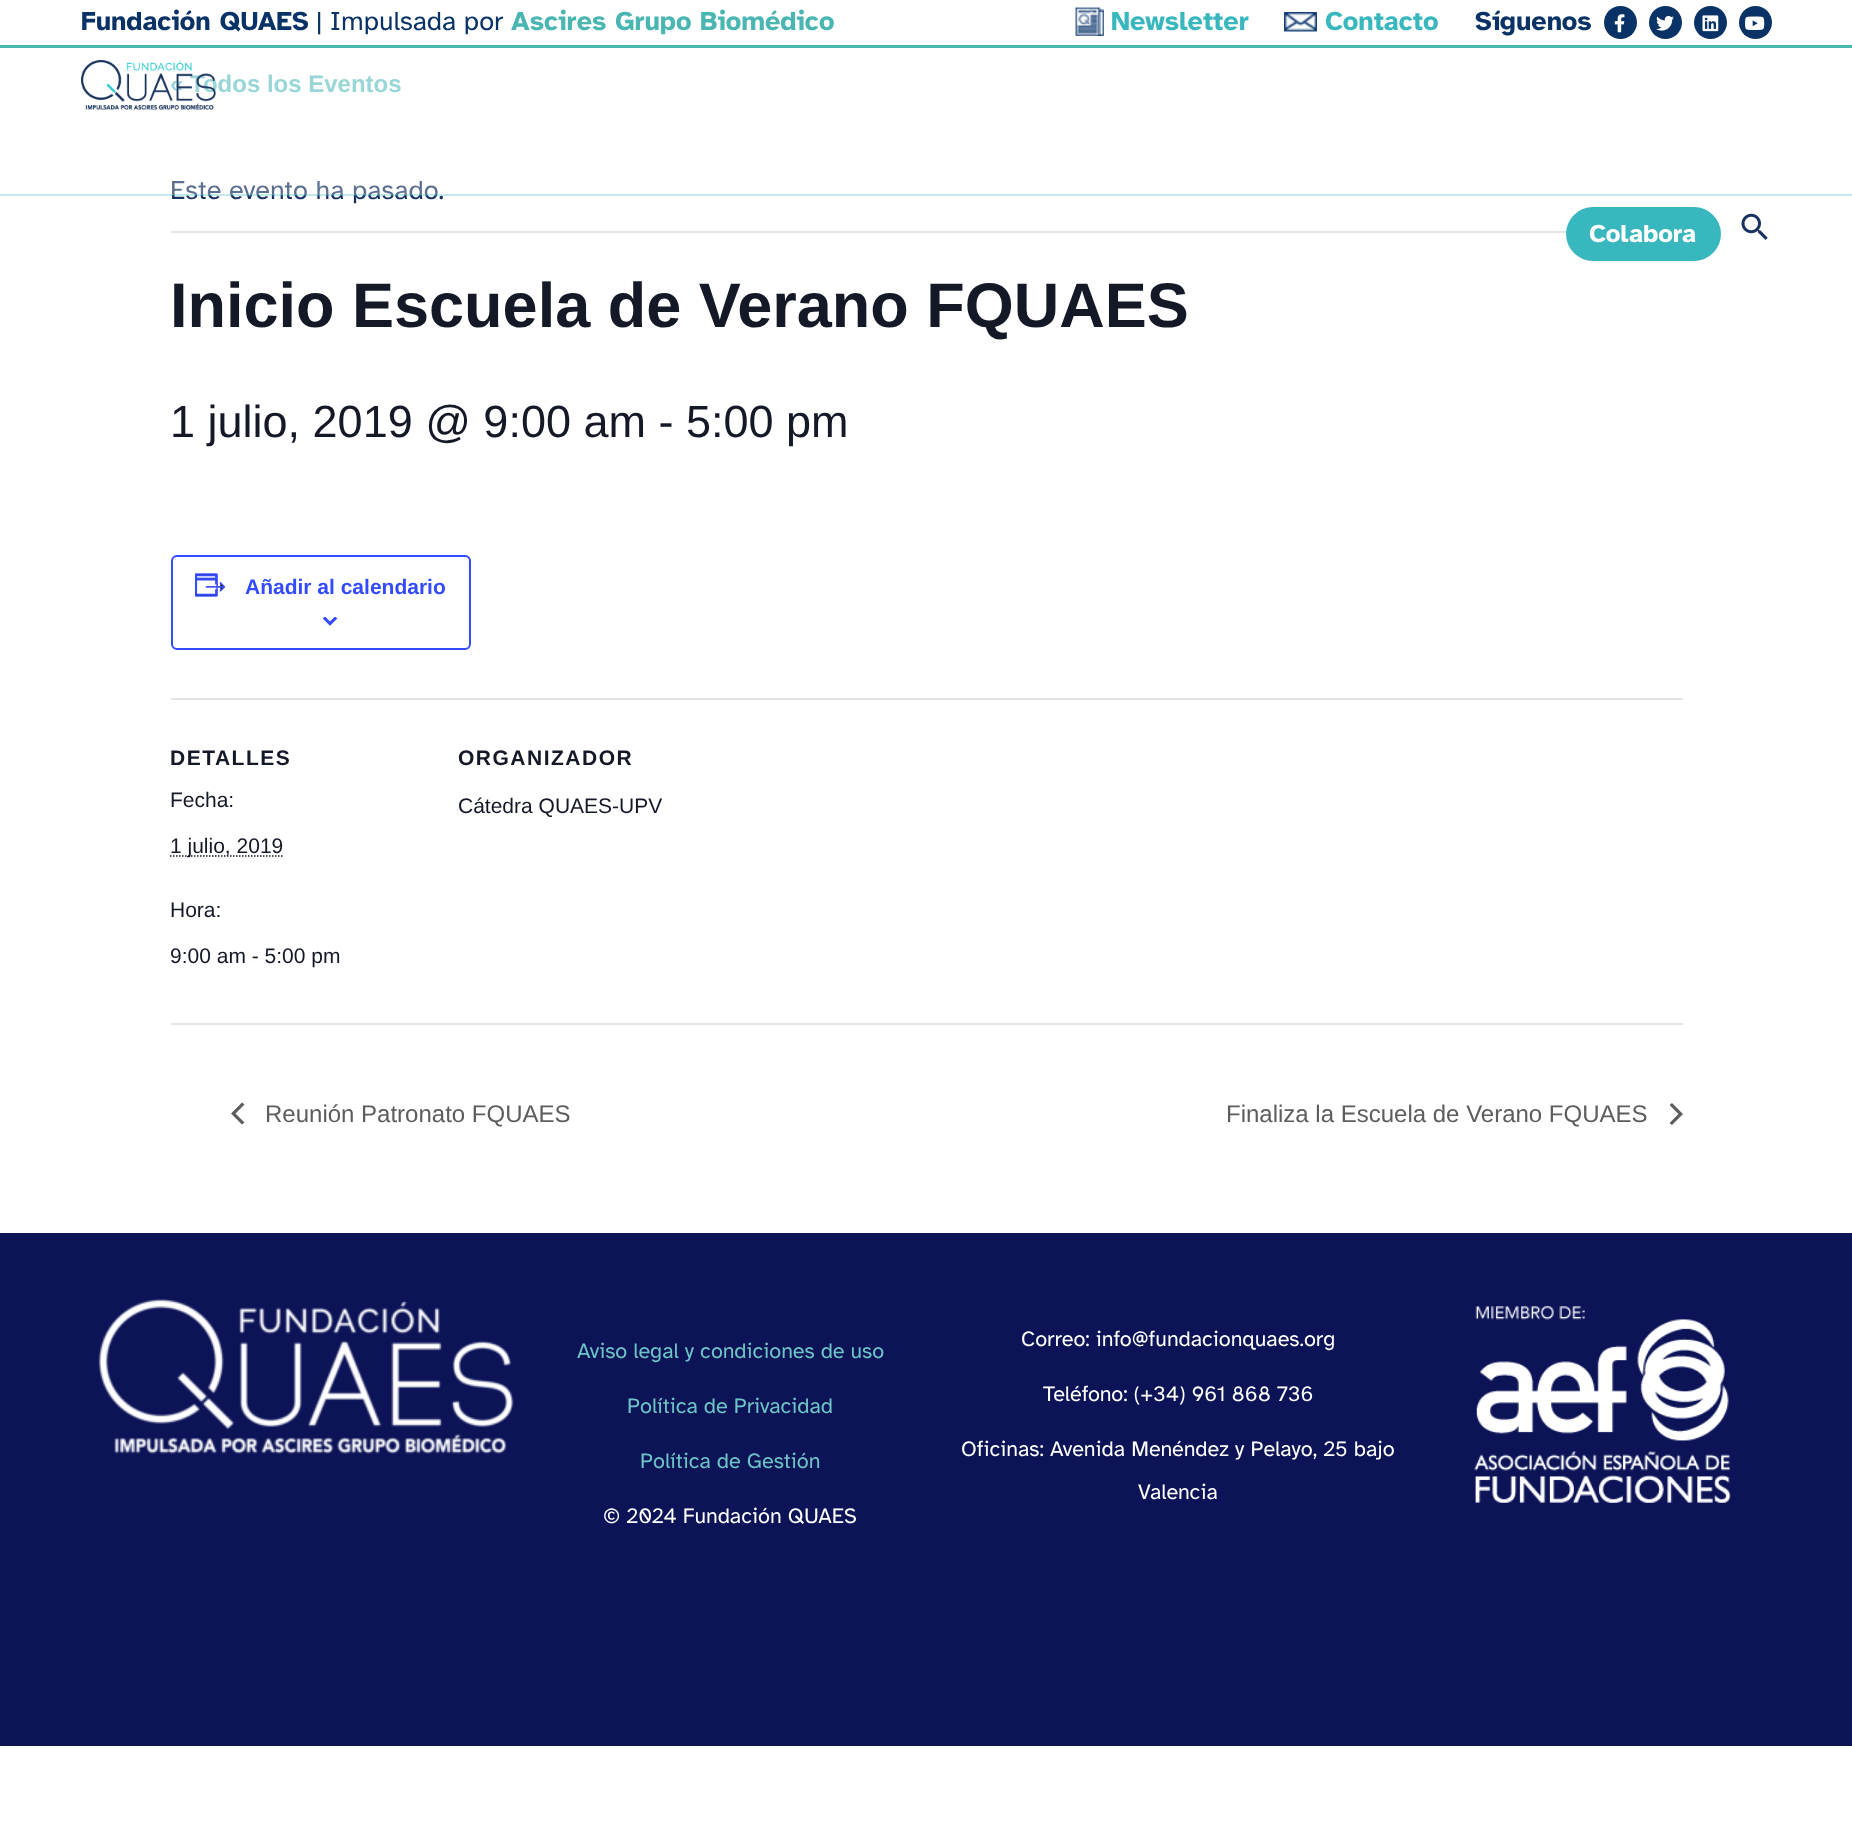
(async () => {
    const canvas = document.querySelector("canvas");
    canvas.width = 1852;
    canvas.height = 1824;
    const context = canvas.getContext("2d");
    context.miterLimit = 4;
    context.fontKerning = "normal";
    function write(s, x, y, font, color) {
        context.font = font;
        context.fillStyle = color;
        context.fillText(s, x, y);
    }
    function block(x, y, w, h, color) {
        context.fillStyle = color;
        context.fillRect(x, y, w, h);
    }
    function card(x, y, w, h, r, color) {
        context.fillStyle = color;
        context.beginPath();
        context.roundRect(x, y, w, h, r);
        context.fill();
    }
    async function photo(src, x, y, w, h) {
        const img = new Image();
        img.src = src;
        await img.decode();
        context.drawImage(img, x, y, w, h);
    }

    block(0, 0, 1852, 1824, "rgb(255, 255, 255)");
    write("Fundación QUAES", 81, 30, "bold 27px Atkinson Hyperlegible", "rgb(9, 50, 102)");
    write("| Impulsada por", 316, 30, "27px Atkinson Hyperlegible", "rgb(9, 50, 102)");
    write("Ascires Grupo Biomédico", 511, 30, "bold 27px Atkinson Hyperlegible", "rgb(73, 182, 178)");
    await photo("media/1.png", 1075, 7, 29, 29);
    write("Newsletter", 1111, 30, "bold 27px Atkinson Hyperlegible", "rgb(57, 183, 190)");
    await photo("media/2.png", 1284, 12, 33, 20);
    write("Contacto", 1325, 30, "bold 27px Atkinson Hyperlegible", "rgb(57, 183, 190)");
    write("Síguenos", 1475, 30, "bold 27px Atkinson Hyperlegible", "rgb(9, 50, 102)");
    context.beginPath();
    context.arc(1620.5, 22.5, 16.5, 0, Math.PI * 2);
    context.fill();
    await photo("media/3.png", 1614, 14, 11, 19);
    context.beginPath();
    context.arc(1665.5, 22.5, 16.5, 0, Math.PI * 2);
    context.fill();
    await photo("media/4.png", 1656, 15, 18, 16);
    context.beginPath();
    context.arc(1710.5, 22.5, 16.5, 0, Math.PI * 2);
    context.fill();
    await photo("media/5.png", 1702, 15, 17, 17);
    context.beginPath();
    context.arc(1755.5, 22.5, 16.5, 0, Math.PI * 2);
    context.fill();
    await photo("media/6.png", 1745, 16, 20, 14);
    block(0, 45, 1852, 3, "rgb(73, 182, 178)");
    write("« Todos los Eventos", 170, 92, "bold 24px Liberation Sans", "rgb(109, 196, 198)");
    write("Este evento ha pasado.", 170, 199, "27px Atkinson Hyperlegible", "rgb(24, 49, 98)");
    block(171, 74, 267, 121, "rgba(255, 255, 255, 0.3)");
    await photo("media/7.png", 81, 60, 135, 50);
    block(171, 231, 1396, 2, "rgb(228, 228, 228)");
    card(1566, 207, 155, 54, 27, "rgb(57, 183, 190)");
    write("Colabora", 1589, 242, "bold 25.5px Atkinson Hyperlegible", "rgb(255, 255, 255)");
    await photo("media/8.png", 1741, 213, 27, 27);
    block(0, 194, 1852, 2, "rgba(57, 183, 190, 0.3)");
    write("Inicio Escuela de Verano FQUAES", 170, 327, "bold 63px Liberation Sans", "rgb(20, 24, 39)");
    write("1 julio, 2019 @ 9:00 am - 5:00 pm", 170, 437, "45px Liberation Sans", "rgb(20, 24, 39)");
    context.beginPath();
    context.roundRect(172, 556, 298, 93, 5);
    context.strokeStyle = "rgb(51, 74, 255)";
    context.lineWidth = 2;
    context.stroke();
    await photo("media/9.png", 195, 573, 31, 24);
    write("Añadir al calendario", 245, 594, "bold 21px Liberation Sans", "rgb(51, 74, 255)");
    await photo("media/10.png", 323, 617, 15, 9);
    block(171, 698, 1512, 2, "rgb(228, 228, 228)");
    context.letterSpacing = "1.5px";
    write("DETALLES", 170, 765, "bold 21px Liberation Sans", "rgb(20, 24, 39)");
    context.letterSpacing = "0px";
    write("Fecha:", 170, 807, "21px Liberation Sans", "rgb(20, 24, 39)");
    context.beginPath();
    context.moveTo(170, 856);
    context.lineTo(283.5, 856);
    context.strokeStyle = "rgb(20, 24, 39)";
    context.lineWidth = 1.5;
    context.setLineDash([1.5, 1.5]);
    context.stroke();
    write("1 julio, 2019", 170, 853, "21px Liberation Sans", "rgb(20, 24, 39)");
    write("Hora:", 170, 917, "21px Liberation Sans", "rgb(20, 24, 39)");
    write("9:00 am - 5:00 pm", 170, 963, "21px Liberation Sans", "rgb(20, 24, 39)");
    context.letterSpacing = "1.5px";
    write("ORGANIZADOR", 458, 765, "bold 21px Liberation Sans", "rgb(20, 24, 39)");
    context.letterSpacing = "0px";
    write("Cátedra QUAES-UPV", 458, 813, "21px Liberation Sans", "rgb(20, 24, 39)");
    block(171, 1023, 1512, 2, "rgb(228, 228, 228)");
    context.fillStyle = "rgb(93, 93, 93)";
    context.beginPath();
    context.moveTo(244.5, 1122.5);
    context.lineTo(242, 1124.5);
    context.lineTo(231, 1113.5);
    context.lineTo(242, 1102.5);
    context.lineTo(244.5, 1104.5);
    context.lineTo(235.5, 1113.5);
    context.closePath();
    context.fill();
    write("Reunión Patronato FQUAES", 265, 1122, "24px Liberation Sans", "rgb(93, 93, 93)");
    write("Finaliza la Escuela de Verano FQUAES", 1226, 1122, "24px Liberation Sans", "rgb(93, 93, 93)");
    context.save();
    context.beginPath();
    context.rect(1670, 1103, 13, 22);
    context.clip();
    context.beginPath();
    context.moveTo(1669.5, 1105);
    context.lineTo(1672, 1103);
    context.lineTo(1683, 1114);
    context.lineTo(1672, 1125);
    context.lineTo(1669.5, 1123);
    context.lineTo(1678.5, 1114);
    context.closePath();
    context.fill();
    context.restore();
    block(0, 1233, 1852, 513, "rgb(12, 20, 87)");
    await photo("media/11.png", 98, 1298, 416, 156);
    write("Aviso legal y condiciones de uso", 577, 1358, "21.6px Atkinson Hyperlegible", "rgb(109, 196, 198)");
    write("Política de Privacidad", 627, 1413, "21.6px Atkinson Hyperlegible", "rgb(109, 196, 198)");
    write("Política de Gestión", 640, 1468, "21.6px Atkinson Hyperlegible", "rgb(109, 196, 198)");
    write("© 2024 Fundación QUAES", 603, 1523, "21.6px Atkinson Hyperlegible", "rgb(255, 255, 255)");
    write("Correo: info@fundacionquaes.org", 1021, 1346, "21.6px Atkinson Hyperlegible", "rgb(255, 255, 255)");
    await photo("media/12.png", 1474, 1306, 257, 197);
    write("Teléfono: (+34) 961 868 736", 1043, 1401, "21.6px Atkinson Hyperlegible", "rgb(255, 255, 255)");
    write("Oficinas: Avenida Menéndez y Pelayo, 25 bajo", 961, 1456, "21.6px Atkinson Hyperlegible", "rgb(255, 255, 255)");
    write("Valencia", 1138, 1499, "21.6px Atkinson Hyperlegible", "rgb(255, 255, 255)");
})();
